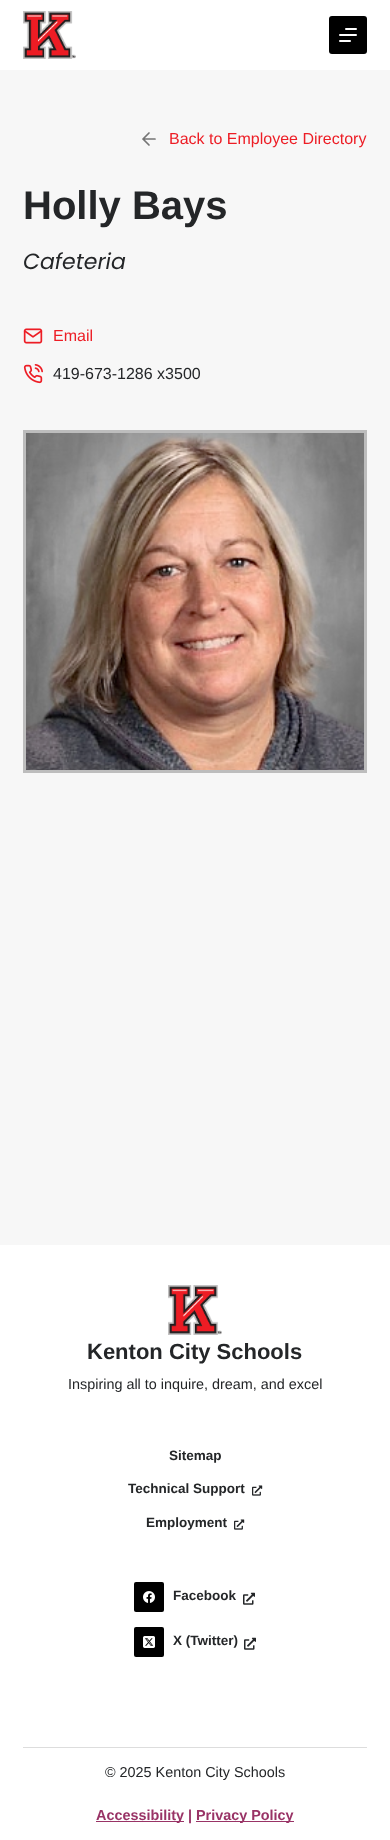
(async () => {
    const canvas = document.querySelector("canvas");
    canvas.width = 390;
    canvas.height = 1840;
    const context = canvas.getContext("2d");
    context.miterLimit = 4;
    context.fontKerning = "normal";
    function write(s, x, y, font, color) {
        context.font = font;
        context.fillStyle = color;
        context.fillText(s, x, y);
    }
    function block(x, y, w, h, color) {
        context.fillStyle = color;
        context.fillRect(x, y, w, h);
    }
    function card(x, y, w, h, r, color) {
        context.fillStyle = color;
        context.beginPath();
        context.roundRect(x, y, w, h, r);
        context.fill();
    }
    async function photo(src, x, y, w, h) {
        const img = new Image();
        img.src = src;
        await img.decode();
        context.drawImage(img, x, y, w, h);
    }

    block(0, 0, 390, 1840, "rgb(247, 247, 247)");
    block(0, 0, 390, 70, "rgb(255, 255, 255)");
    await photo("media/1.png", 23, 11, 53, 48);
    card(329, 16, 38, 38, 3, "rgb(0, 0, 0)");
    card(345, 28, 12, 2, 1, "rgb(255, 255, 255)");
    card(339, 34, 18, 2, 1, "rgb(255, 255, 255)");
    card(339, 40, 12, 2, 1, "rgb(255, 255, 255)");
    context.beginPath();
    context.moveTo(155, 139);
    context.lineTo(143, 139);
    context.moveTo(149, 145);
    context.lineTo(143, 139);
    context.lineTo(149, 133);
    context.strokeStyle = "rgb(117, 117, 117)";
    context.lineWidth = 1.7;
    context.lineCap = "round";
    context.lineJoin = "round";
    context.stroke();
    write("Back to Employee Directory", 169, 144, "16px Liberation Sans", "rgb(237, 29, 37)");
    write("Holly Bays", 23, 219, "bold 40px Liberation Sans", "rgb(36, 38, 40)");
    write("Cafeteria", 23, 269, "italic 22px Poppins", "rgb(36, 38, 40)");
    await photo("media/2.png", 23, 328, 20, 16);
    write("Email", 53, 341, "16px Liberation Sans", "rgb(237, 29, 37)");
    await photo("media/3.png", 23, 364, 20, 20);
    write("419-673-1286 x3500", 53, 379, "16px Liberation Sans", "rgb(36, 38, 40)");
    context.strokeStyle = "rgb(189, 189, 189)";
    context.lineWidth = 3;
    context.lineJoin = "miter";
    context.strokeRect(24.5, 431.5, 341, 340);
    await photo("media/4.png", 26, 433, 338, 337);
    block(0, 1245, 390, 595, "rgb(255, 255, 255)");
    await photo("media/5.png", 168, 1285, 54, 50);
    write("Kenton City Schools", 87, 1359, "bold 22px Liberation Sans", "rgb(36, 38, 40)");
    write("Inspiring all to inquire, dream, and excel", 68, 1389, "14.4px Liberation Sans", "rgb(36, 38, 40)");
    write("Sitemap", 169, 1460, "bold 13.5px Liberation Sans", "rgb(36, 38, 40)");
    write("Technical Support", 128, 1493, "bold 13.5px Liberation Sans", "rgb(36, 38, 40)");
    await photo("media/6.png", 252, 1485, 11, 11);
    write("Employment", 146, 1527, "bold 13.5px Liberation Sans", "rgb(36, 38, 40)");
    await photo("media/6.png", 234, 1519, 11, 11);
    card(134, 1582, 30, 30, 2, "rgb(0, 0, 0)");
    await photo("media/7.png", 143, 1591, 12, 12);
    write("Facebook", 173, 1600, "bold 13.5px Liberation Sans", "rgb(36, 38, 40)");
    await photo("media/8.png", 243, 1592, 12, 13);
    card(134, 1627, 30, 30, 2, "rgb(0, 0, 0)");
    await photo("media/9.png", 143, 1636, 12, 12);
    write("X (Twitter)", 173, 1645, "bold 13.5px Liberation Sans", "rgb(36, 38, 40)");
    await photo("media/8.png", 244, 1637, 12, 13);
    block(23, 1747, 344, 1, "rgb(221, 221, 221)");
    write("© 2025 Kenton City Schools", 105, 1777, "14.4px Liberation Sans", "rgb(36, 38, 40)");
    block(96, 1821, 88, 1, "rgb(153, 51, 102)");
    write("Accessibility |", 96, 1820, "bold 14.4px Liberation Sans", "rgb(153, 51, 102)");
    block(196, 1821, 98, 1, "rgb(153, 51, 102)");
    write("Privacy Policy", 196, 1820, "bold 14.4px Liberation Sans", "rgb(153, 51, 102)");
})();
